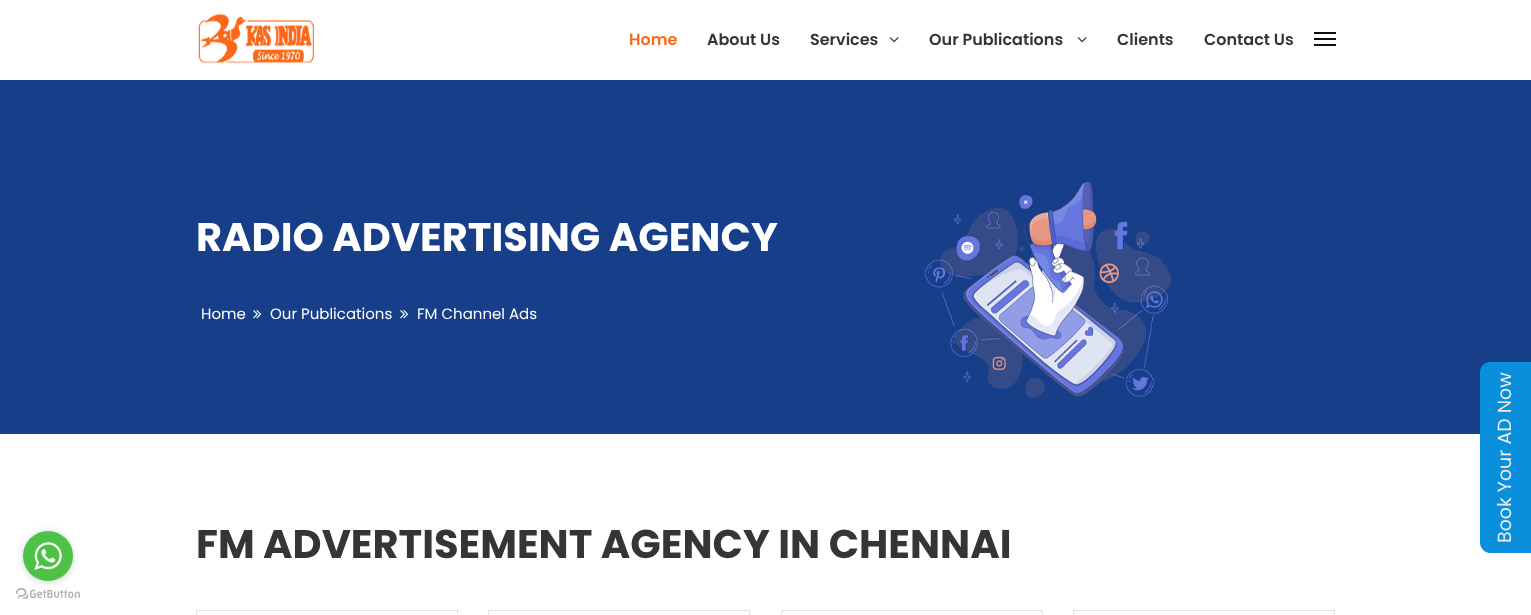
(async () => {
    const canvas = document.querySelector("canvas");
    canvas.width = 1531;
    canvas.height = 615;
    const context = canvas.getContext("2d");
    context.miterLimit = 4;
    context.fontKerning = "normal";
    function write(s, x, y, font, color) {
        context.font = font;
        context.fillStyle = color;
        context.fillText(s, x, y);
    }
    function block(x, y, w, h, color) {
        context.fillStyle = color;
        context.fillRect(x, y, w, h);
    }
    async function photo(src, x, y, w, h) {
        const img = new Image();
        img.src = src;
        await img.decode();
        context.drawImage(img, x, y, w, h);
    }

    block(0, 0, 1531, 615, "rgb(255, 255, 255)");
    await photo("media/1.png", 198, 13, 117, 51);
    write("Home", 629, 45, "600 16px Poppins", "rgb(251, 105, 25)");
    write("About Us", 707, 45, "600 16px Poppins", "rgb(53, 53, 53)");
    write("Services", 810, 45, "600 16px Poppins", "rgb(53, 53, 53)");
    await photo("media/2.png", 889, 37, 10, 6);
    write("Our Publications", 929, 45, "600 16px Poppins", "rgb(53, 53, 53)");
    await photo("media/2.png", 1077, 37, 10, 6);
    write("Clients", 1117, 45, "600 16px Poppins", "rgb(53, 53, 53)");
    write("Contact Us", 1204, 45, "600 16px Poppins", "rgb(53, 53, 53)");
    block(1314, 32, 22, 2, "rgb(14, 14, 14)");
    block(1314, 38, 22, 2, "rgb(14, 14, 14)");
    block(1314, 44, 22, 2, "rgb(14, 14, 14)");
    block(0, 80, 1531, 354, "rgb(22, 62, 137)");
    write("RADIO ADVERTISING AGENCY", 196, 251, "bold 40px Poppins", "rgb(255, 255, 255)");
    write("Home", 201, 319, "15px Poppins", "rgb(255, 255, 255)");
    await photo("media/3.png", 253, 310, 9, 9);
    write("Our Publications", 270, 319, "15px Poppins", "rgb(255, 255, 255)");
    await photo("media/3.png", 400, 310, 9, 9);
    write("FM Channel Ads", 417, 319, "15px Poppins", "rgb(255, 255, 255)");
    await photo("media/4.png", 925, 181, 246, 217);
    context.fillStyle = "rgb(10, 143, 221)";
    context.beginPath();
    context.moveTo(1480, 543);
    context.lineTo(1480, 372);
    context.bezierCurveTo(1480, 366, 1485, 362, 1490, 362);
    context.lineTo(1531, 362);
    context.lineTo(1531, 553);
    context.lineTo(1490, 553);
    context.bezierCurveTo(1485, 553, 1480, 548, 1480, 543);
    context.closePath();
    context.fill();
    context.font = "19px Poppins";
    context.fillStyle = "rgb(235, 235, 235)";
    context.save();
    context.translate(1511, 543);
    context.rotate(-90 * Math.PI / 180);
    context.fillText("Book Your AD Now", 0, 0);
    context.restore();
    await photo("media/6.png", 16, 588, 64, 11);
    context.fillStyle = "rgba(136, 136, 136, 0.4)";
    context.filter = "blur(3.5px)";
    context.beginPath();
    context.roundRect(23, 532, 50, 50, 25);
    context.fill();
    context.filter = "none";
    context.fillStyle = "rgb(77, 194, 71)";
    context.beginPath();
    context.arc(48, 556, 25, 0, Math.PI * 2);
    context.fill();
    await photo("media/5.png", 34, 542, 28, 28);
    write("FM ADVERTISEMENT AGENCY IN CHENNAI", 196, 558, "bold 40px Poppins", "rgb(53, 53, 53)");
    context.strokeStyle = "rgb(222, 226, 230)";
    context.strokeRect(196.5, 610.5, 261, 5);
    context.strokeRect(488.5, 610.5, 261, 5);
    context.strokeRect(781.5, 610.5, 261, 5);
    context.strokeRect(1073.5, 610.5, 261, 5);
})();
